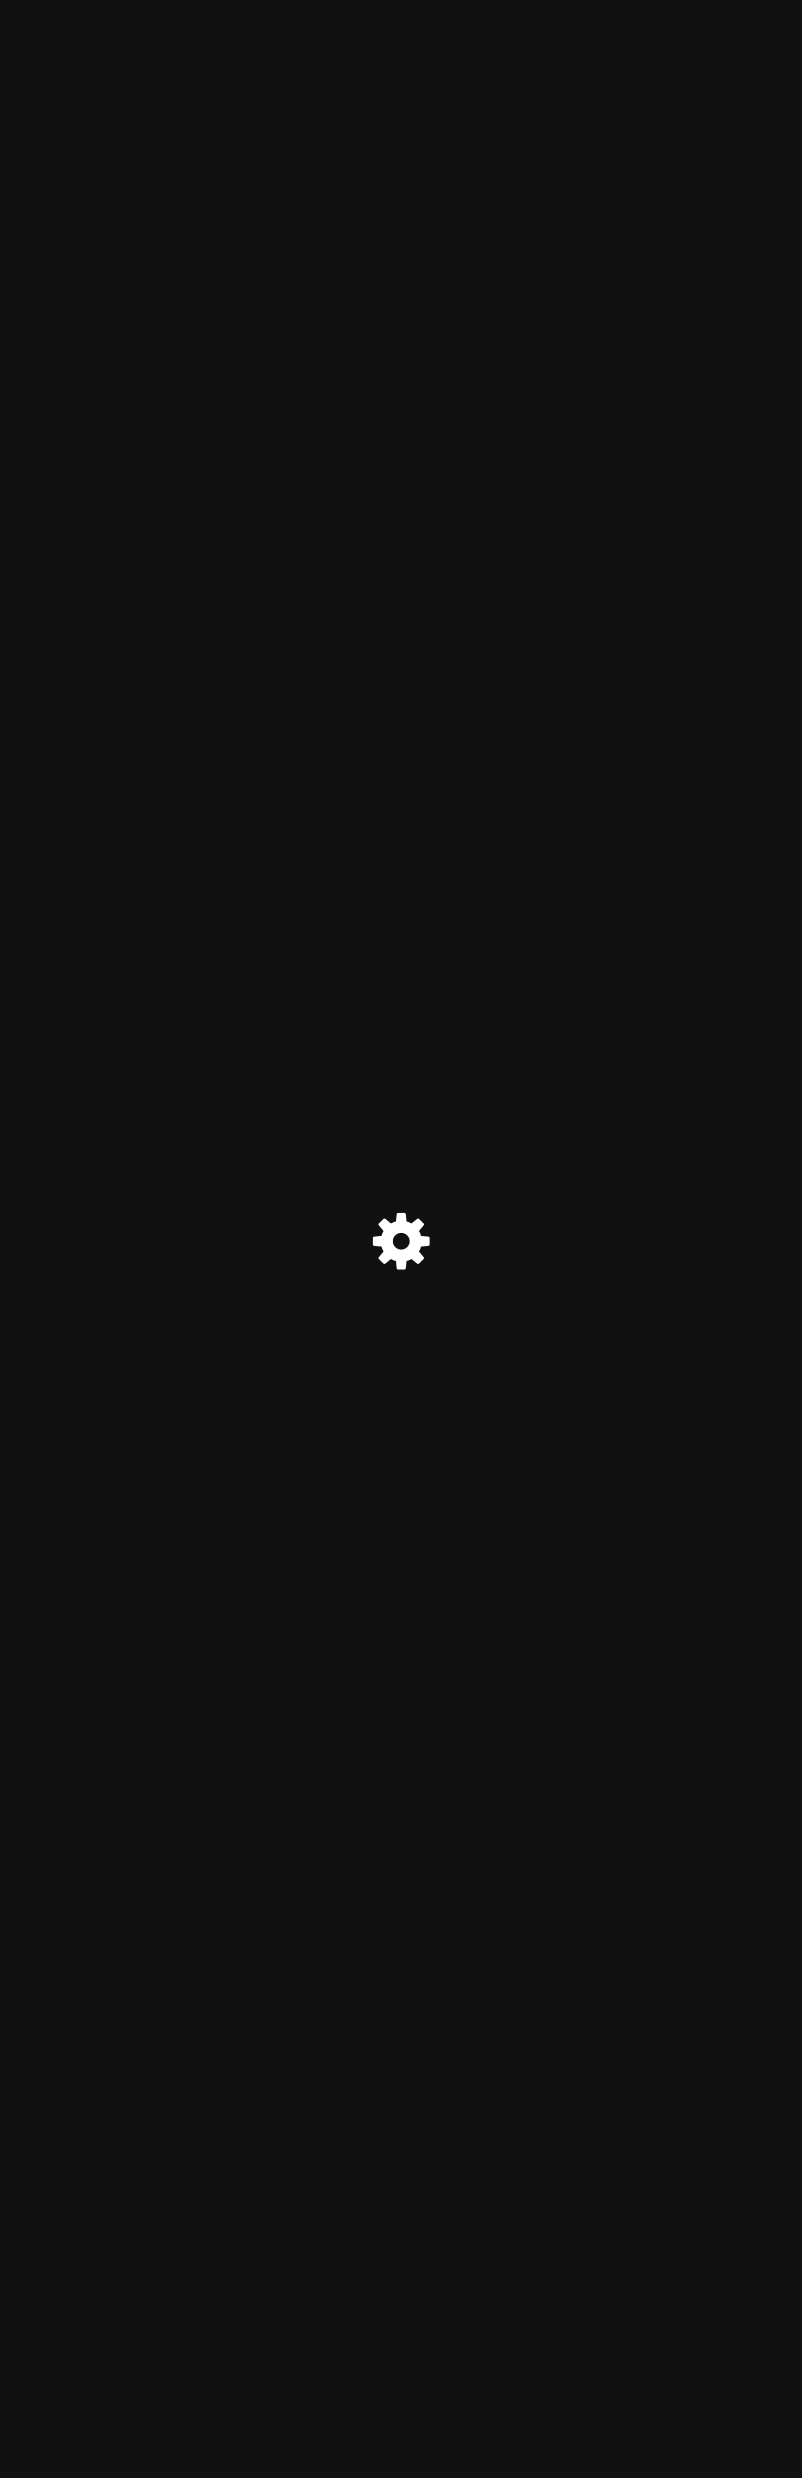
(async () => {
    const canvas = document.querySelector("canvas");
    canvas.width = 802;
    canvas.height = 2478;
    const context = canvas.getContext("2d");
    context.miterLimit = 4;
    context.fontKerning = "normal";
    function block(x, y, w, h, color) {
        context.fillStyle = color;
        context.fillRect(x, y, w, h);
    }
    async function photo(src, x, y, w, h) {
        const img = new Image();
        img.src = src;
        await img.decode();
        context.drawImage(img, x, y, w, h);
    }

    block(0, 0, 802, 2478, "rgb(17, 17, 17)");
    await photo("media/1.png", 372, 1212, 58, 58);
})();
